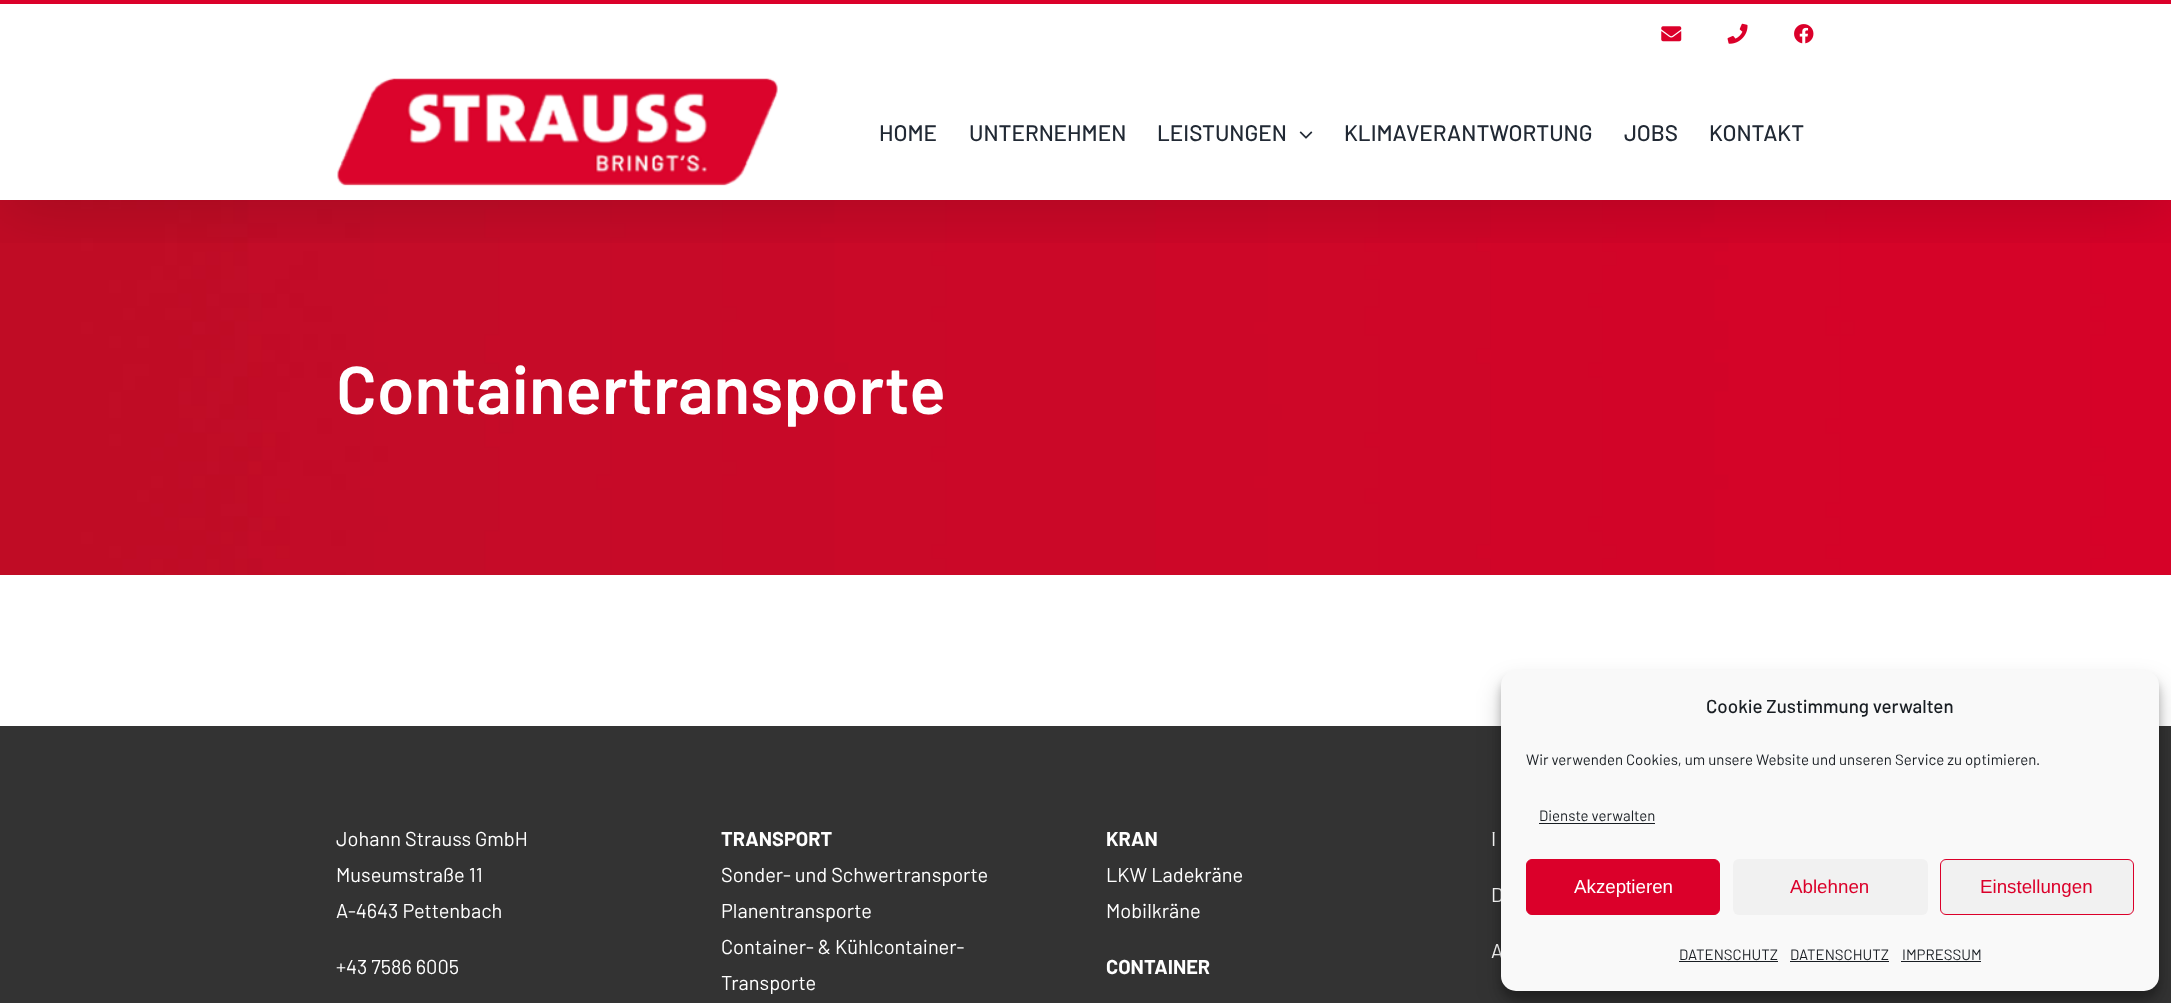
(async () => {
    const canvas = document.querySelector("canvas");
    canvas.width = 2171;
    canvas.height = 1003;
    const context = canvas.getContext("2d");
    context.miterLimit = 4;
    context.fontKerning = "normal";
    function write(s, x, y, font, color) {
        context.font = font;
        context.fillStyle = color;
        context.fillText(s, x, y);
    }
    function block(x, y, w, h, color) {
        context.fillStyle = color;
        context.fillRect(x, y, w, h);
    }
    function card(x, y, w, h, r, color) {
        context.fillStyle = color;
        context.beginPath();
        context.roundRect(x, y, w, h, r);
        context.fill();
    }
    async function photo(src, x, y, w, h) {
        const img = new Image();
        img.src = src;
        await img.decode();
        context.drawImage(img, x, y, w, h);
    }

    block(0, 0, 2171, 1003, "rgb(255, 255, 255)");
    await photo("media/6.png", 0, 200, 2171, 375);
    context.save();
    context.beginPath();
    context.rect(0, 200, 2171, 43);
    context.clip();
    context.fillStyle = "rgba(0, 0, 0, 0.14)";
    context.filter = "blur(31px)";
    context.beginPath();
    context.rect(3, 15, 2166, 195);
    context.fill();
    context.filter = "none";
    context.restore();
    block(0, 0, 2171, 4, "rgb(219, 0, 42)");
    await photo("media/1.png", 1661, 26, 21, 16);
    await photo("media/2.png", 1727, 23, 21, 21);
    await photo("media/3.png", 1794, 24, 20, 20);
    await photo("media/4.png", 337, 78, 441, 108);
    write("HOME", 879, 141, "500 22.5px Barlow", "rgb(33, 41, 52)");
    write("UNTERNEHMEN", 969, 141, "500 22.5px Barlow", "rgb(33, 41, 52)");
    write("LEISTUNGEN", 1157, 141, "500 22.5px Barlow", "rgb(33, 41, 52)");
    await photo("media/5.png", 1299, 131, 14, 8);
    write("KLIMAVERANTWORTUNG", 1344, 141, "500 22.5px Barlow", "rgb(33, 41, 52)");
    write("JOBS", 1624, 141, "500 22.5px Barlow", "rgb(33, 41, 52)");
    write("KONTAKT", 1709, 141, "500 22.5px Barlow", "rgb(33, 41, 52)");
    write("Containertransporte", 336, 414, "600 67.5px Barlow", "rgb(255, 255, 255)");
    block(0, 726, 2171, 277, "rgb(51, 51, 51)");
    write("Johann Strauss GmbH", 336, 846, "20px Barlow", "rgb(255, 255, 255)");
    write("Museumstraße 11", 336, 882, "20px Barlow", "rgb(255, 255, 255)");
    write("A-4643 Pettenbach", 336, 918, "20px Barlow", "rgb(255, 255, 255)");
    write("+43 7586 6005", 336, 974, "20px Barlow", "rgb(255, 255, 255)");
    write("TRANSPORT", 721, 846, "bold 20px Barlow", "rgb(255, 255, 255)");
    write("Sonder- und Schwertransporte", 721, 882, "20px Barlow", "rgb(255, 255, 255)");
    write("Planentransporte", 721, 918, "20px Barlow", "rgb(255, 255, 255)");
    write("Container- & Kühlcontainer-", 721, 954, "20px Barlow", "rgb(255, 255, 255)");
    write("Transporte", 721, 990, "20px Barlow", "rgb(255, 255, 255)");
    write("KRAN", 1106, 846, "bold 20px Barlow", "rgb(255, 255, 255)");
    write("LKW Ladekräne", 1106, 882, "20px Barlow", "rgb(255, 255, 255)");
    write("Mobilkräne", 1106, 918, "20px Barlow", "rgb(255, 255, 255)");
    write("CONTAINER", 1106, 974, "bold 20px Barlow", "rgb(255, 255, 255)");
    write("I", 1491, 846, "20px Barlow", "rgb(255, 255, 255)");
    write("D", 1491, 902, "20px Barlow", "rgb(255, 255, 255)");
    write("A", 1491, 958, "20px Barlow", "rgb(255, 255, 255)");
    context.fillStyle = "rgba(0, 0, 0, 0.23)";
    context.filter = "blur(4px)";
    context.beginPath();
    context.roundRect(1501, 678, 658, 321, 15);
    context.fill();
    context.filter = "none";
    context.fillStyle = "rgba(0, 0, 0, 0.19)";
    context.filter = "blur(12.5px)";
    context.beginPath();
    context.roundRect(1501, 683, 658, 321, 15);
    context.fill();
    context.filter = "none";
    card(1501, 670, 658, 321, 15, "rgb(249, 249, 249)");
    write("Cookie Zustimmung verwalten", 1706, 713, "500 18.75px Barlow", "rgb(25, 30, 35)");
    write("Wir verwenden Cookies, um unsere Website und unseren Service zu optimieren.", 1526, 765, "15px Barlow", "rgb(25, 30, 35)");
    write("Dienste verwalten", 1539, 821, "15px Barlow", "rgb(25, 30, 35)");
    block(1539, 823, 116, 1, "rgb(25, 30, 35)");
    context.fillStyle = "rgb(219, 0, 42)";
    context.beginPath();
    context.roundRect(1526.5, 859.5, 193, 55, 5.5);
    context.fill();
    context.strokeStyle = "rgb(219, 0, 42)";
    context.stroke();
    write("Akzeptieren", 1574, 893, "18.75px Liberation Sans", "rgb(255, 255, 255)");
    card(1733, 859, 195, 56, 6, "rgb(241, 241, 241)");
    write("Ablehnen", 1790, 893, "18.75px Liberation Sans", "rgb(219, 0, 42)");
    context.fillStyle = "rgb(241, 241, 241)";
    context.beginPath();
    context.roundRect(1940.5, 859.5, 193, 55, 5.5);
    context.fill();
    context.stroke();
    write("Einstellungen", 1980, 893, "18.75px Liberation Sans", "rgb(219, 0, 42)");
    write("DATENSCHUTZ", 1679, 960, "15px Barlow", "rgb(25, 30, 35)");
    block(1679, 961, 99, 1, "rgb(25, 30, 35)");
    write("DATENSCHUTZ", 1790, 960, "15px Barlow", "rgb(25, 30, 35)");
    block(1790, 961, 99, 1, "rgb(25, 30, 35)");
    write("IMPRESSUM", 1902, 960, "15px Barlow", "rgb(25, 30, 35)");
    block(1901, 961, 80, 1, "rgb(25, 30, 35)");
})();
